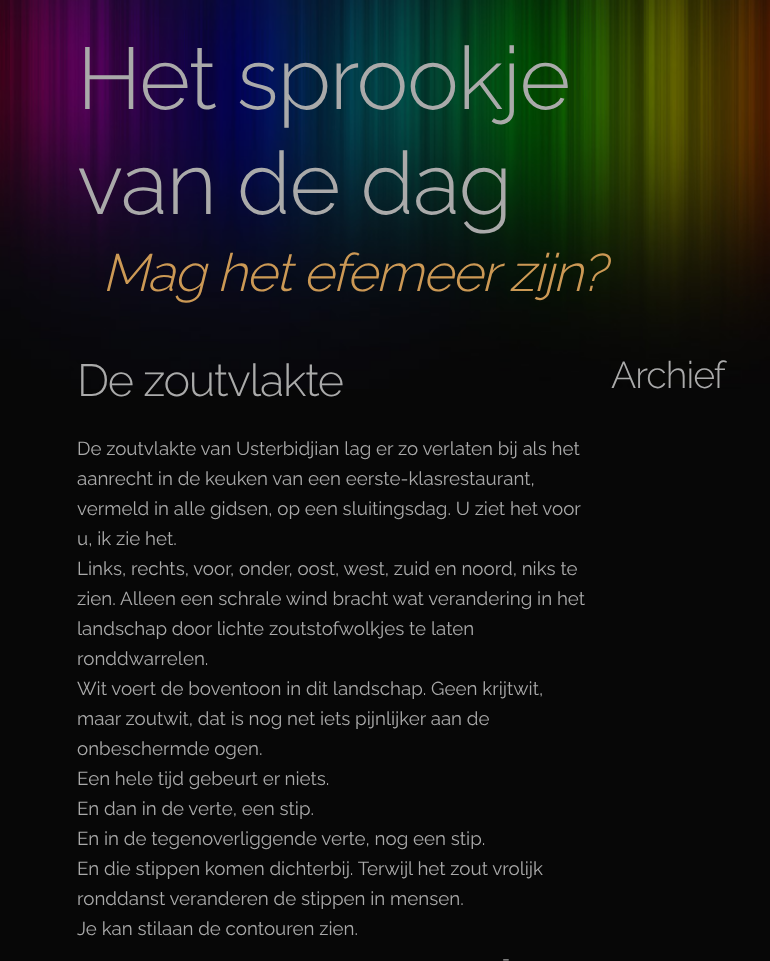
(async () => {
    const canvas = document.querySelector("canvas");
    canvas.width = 770;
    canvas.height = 961;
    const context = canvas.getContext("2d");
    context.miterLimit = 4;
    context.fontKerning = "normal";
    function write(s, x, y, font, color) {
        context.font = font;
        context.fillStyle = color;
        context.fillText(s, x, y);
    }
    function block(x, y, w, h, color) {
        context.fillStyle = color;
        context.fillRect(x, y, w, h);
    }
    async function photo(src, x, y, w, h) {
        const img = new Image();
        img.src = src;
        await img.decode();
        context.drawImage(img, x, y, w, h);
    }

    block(0, 0, 770, 961, "rgb(7, 7, 7)");
    await photo("media/1.png", 0, 0, 770, 389);
    context.letterSpacing = "-1.25px";
    write("Het sprookje", 77, 109, "300 87.5px Raleway", "rgb(170, 170, 170)");
    write("van de dag", 77, 214, "300 87.5px Raleway", "rgb(170, 170, 170)");
    write("Mag het efemeer zijn?", 102, 291, "italic 300 52.5px Raleway", "rgb(204, 153, 85)");
    write("De zoutvlakte", 77, 396, "300 45px Raleway", "rgb(170, 170, 170)");
    context.letterSpacing = "0px";
    write("De zoutvlakte van Usterbidjian lag er zo verlaten bij als het", 77, 455, "18.75px Raleway", "rgb(170, 170, 170)");
    write("aanrecht in de keuken van een eerste-klasrestaurant,", 77, 485, "18.75px Raleway", "rgb(170, 170, 170)");
    write("vermeld in alle gidsen, op een sluitingsdag. U ziet het voor", 77, 515, "18.75px Raleway", "rgb(170, 170, 170)");
    write("u, ik zie het.", 77, 545, "18.75px Raleway", "rgb(170, 170, 170)");
    write("Links, rechts, voor, onder, oost, west, zuid en noord, niks te", 77, 575, "18.75px Raleway", "rgb(170, 170, 170)");
    write("zien. Alleen een schrale wind bracht wat verandering in het", 77, 605, "18.75px Raleway", "rgb(170, 170, 170)");
    write("landschap door lichte zoutstofwolkjes te laten", 77, 635, "18.75px Raleway", "rgb(170, 170, 170)");
    write("ronddwarrelen.", 77, 665, "18.75px Raleway", "rgb(170, 170, 170)");
    write("Wit voert de boventoon in dit landschap. Geen krijtwit,", 77, 695, "18.75px Raleway", "rgb(170, 170, 170)");
    write("maar zoutwit, dat is nog net iets pijnlijker aan de", 77, 725, "18.75px Raleway", "rgb(170, 170, 170)");
    write("onbeschermde ogen.", 77, 755, "18.75px Raleway", "rgb(170, 170, 170)");
    write("Een hele tijd gebeurt er niets.", 77, 785, "18.75px Raleway", "rgb(170, 170, 170)");
    write("En dan in de verte, een stip.", 77, 815, "18.75px Raleway", "rgb(170, 170, 170)");
    write("En in de tegenoverliggende verte, nog een stip.", 77, 845, "18.75px Raleway", "rgb(170, 170, 170)");
    write("En die stippen komen dichterbij. Terwijl het zout vrolijk", 77, 875, "18.75px Raleway", "rgb(170, 170, 170)");
    write("ronddanst veranderen de stippen in mensen.", 77, 905, "18.75px Raleway", "rgb(170, 170, 170)");
    write("Je kan stilaan de contouren zien.", 77, 935, "18.75px Raleway", "rgb(170, 170, 170)");
    write("-", 502, 965, "18.75px Raleway", "rgb(170, 170, 170)");
    context.letterSpacing = "-1px";
    write("Archief", 611, 388, "300 37.5px Raleway", "rgb(170, 170, 170)");
})();
